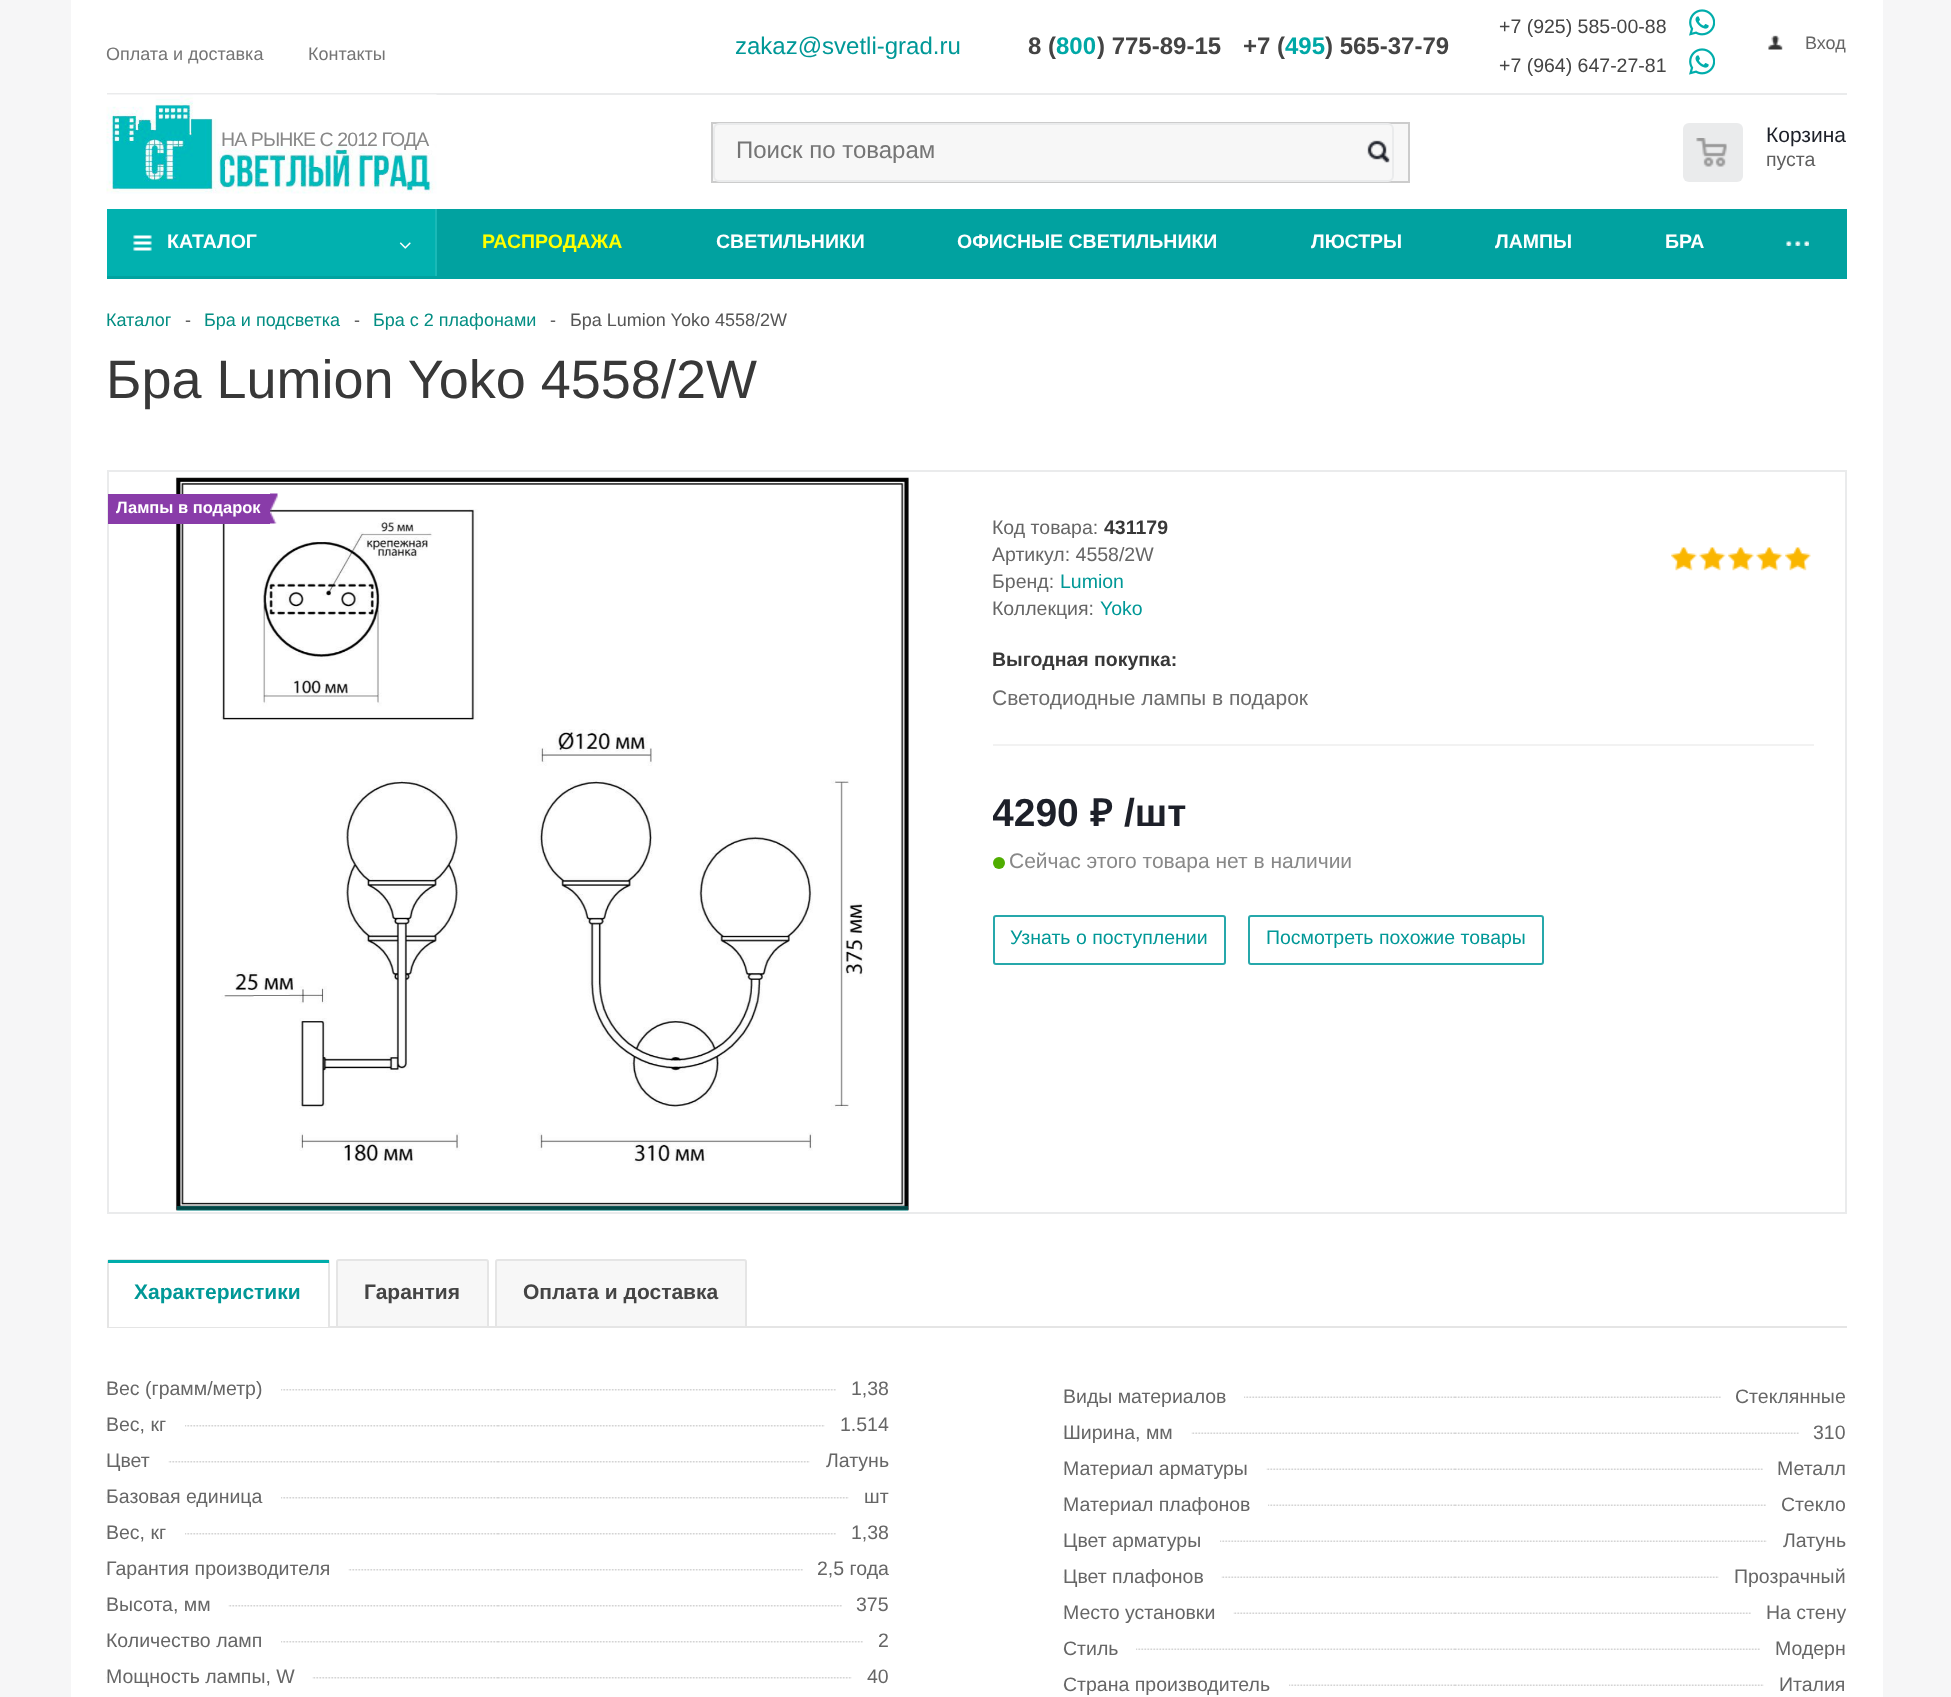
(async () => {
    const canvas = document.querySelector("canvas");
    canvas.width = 1951;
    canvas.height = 1697;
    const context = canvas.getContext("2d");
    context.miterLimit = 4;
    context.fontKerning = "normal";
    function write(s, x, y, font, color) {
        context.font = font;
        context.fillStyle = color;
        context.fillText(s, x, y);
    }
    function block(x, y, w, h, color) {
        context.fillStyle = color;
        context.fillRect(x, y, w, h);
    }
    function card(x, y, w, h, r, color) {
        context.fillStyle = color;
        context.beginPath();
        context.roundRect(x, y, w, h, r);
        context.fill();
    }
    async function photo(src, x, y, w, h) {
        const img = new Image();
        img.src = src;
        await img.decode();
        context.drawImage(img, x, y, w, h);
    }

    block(0, 0, 1951, 1697, "rgb(246, 246, 247)");
    block(71, 0, 1812, 209, "rgb(255, 255, 255)");
    write("zakaz@svetli-grad.ru", 735, 54, "24px Liberation Sans", "rgb(0, 152, 151)");
    write("8 (", 1028, 54, "bold 24px Liberation Sans", "rgb(68, 68, 68)");
    write("800", 1056, 54, "bold 24px Liberation Sans", "rgb(0, 168, 166)");
    write(") 775-89-15", 1097, 54, "bold 24px Liberation Sans", "rgb(68, 68, 68)");
    write("+7 (", 1243, 54, "bold 24px Liberation Sans", "rgb(68, 68, 68)");
    write("495", 1285, 54, "bold 24px Liberation Sans", "rgb(0, 168, 166)");
    write(") 565-37-79", 1325, 54, "bold 24px Liberation Sans", "rgb(68, 68, 68)");
    write("+7 (925) 585-00-88", 1499, 33, "19.5px Liberation Sans", "rgb(68, 68, 68)");
    await photo("media/1.png", 1689, 9, 26, 27);
    write("+7 (964) 647-27-81", 1499, 72, "19.5px Liberation Sans", "rgb(68, 68, 68)");
    await photo("media/1.png", 1689, 48, 26, 27);
    await photo("media/2.png", 1768, 35, 15, 15);
    write("Вход", 1805, 49, "18px Liberation Sans", "rgb(102, 102, 102)");
    write("Оплата и доставка", 106, 60, "18px Liberation Sans", "rgb(117, 117, 117)");
    write("Контакты", 308, 60, "18px Liberation Sans", "rgb(117, 117, 117)");
    block(107, 93, 1740, 2, "rgb(234, 235, 236)");
    await photo("media/3.png", 106, 94, 331, 100);
    context.letterSpacing = "-0.9px";
    write("НА РЫНКЕ С 2012 ГОДА", 221, 146, "19.5px Liberation Sans", "rgb(136, 136, 136)");
    context.fillStyle = "rgb(247, 247, 247)";
    context.beginPath();
    context.rect(712, 123, 697, 59);
    context.fill();
    context.strokeStyle = "rgb(204, 204, 204)";
    context.lineWidth = 2;
    context.stroke();
    context.beginPath();
    context.roundRect(714, 124, 679, 57, 5);
    context.fill();
    context.strokeStyle = "rgb(234, 235, 236)";
    context.stroke();
    context.letterSpacing = "0px";
    write("Поиск по товарам", 736, 158, "24px Liberation Sans", "rgb(117, 117, 117)");
    await photo("media/4.png", 1367, 140, 23, 23);
    card(1683, 123, 60, 59, 6, "rgb(234, 235, 236)");
    await photo("media/5.png", 1696, 138, 31, 29);
    write("Корзина", 1766, 142, "21px Liberation Sans", "rgb(29, 32, 41)");
    write("пуста", 1766, 166, "19.5px Liberation Sans", "rgb(95, 95, 95)");
    block(71, 209, 1812, 1488, "rgb(255, 255, 255)");
    block(107, 209, 1740, 70, "rgb(1, 162, 160)");
    block(107, 209, 328, 67, "rgb(1, 177, 175)");
    await photo("media/6.png", 133, 235, 19, 16);
    write("КАТАЛОГ", 167, 248, "bold 19.5px Liberation Sans", "rgb(255, 255, 255)");
    block(435, 209, 2, 67, "rgb(26, 185, 183)");
    await photo("media/7.png", 399, 242, 12, 7);
    write("РАСПРОДАЖА", 482, 248, "bold 19.5px Liberation Sans", "rgb(255, 255, 0)");
    write("СВЕТИЛЬНИКИ", 716, 248, "bold 19.5px Liberation Sans", "rgb(255, 255, 255)");
    write("ОФИСНЫЕ СВЕТИЛЬНИКИ", 957, 248, "bold 19.5px Liberation Sans", "rgb(255, 255, 255)");
    write("ЛЮСТРЫ", 1311, 248, "bold 19.5px Liberation Sans", "rgb(255, 255, 255)");
    write("ЛАМПЫ", 1495, 248, "bold 19.5px Liberation Sans", "rgb(255, 255, 255)");
    write("БРА", 1665, 248, "bold 19.5px Liberation Sans", "rgb(255, 255, 255)");
    await photo("media/8.png", 1786, 241, 23, 5);
    write("Каталог", 106, 326, "18px Liberation Sans", "rgb(3, 142, 131)");
    write("-", 185, 326, "18px Liberation Sans", "rgb(85, 85, 85)");
    write("Бра и подсветка", 204, 326, "18px Liberation Sans", "rgb(3, 142, 131)");
    write("-", 354, 326, "18px Liberation Sans", "rgb(85, 85, 85)");
    write("Бра с 2 плафонами", 373, 326, "18px Liberation Sans", "rgb(3, 142, 131)");
    write("-", 550, 326, "18px Liberation Sans", "rgb(85, 85, 85)");
    write("Бра Lumion Yoko 4558/2W", 570, 326, "18px Liberation Sans", "rgb(85, 85, 85)");
    write("Бра Lumion Yoko 4558/2W", 106, 398, "54px Liberation Sans", "rgb(56, 56, 56)");
    context.strokeRect(108, 471, 1738, 742);
    await photo("media/9.png", 175, 477, 734, 734);
    block(177, 1206, 731, 5, "rgba(0, 173, 171, 0.4)");
    block(108, 494, 162, 30, "rgb(137, 60, 169)");
    write("Лампы в подарок", 116, 513, "bold 16.5px Liberation Sans", "rgb(255, 255, 255)");
    await photo("media/10.png", 270, 493, 8, 31);
    block(993, 744, 821, 2, "rgb(242, 242, 242)");
    write("Код товара:", 992, 534, "19.5px Liberation Sans", "rgb(102, 102, 102)");
    write("431179", 1104, 534, "bold 19.5px Liberation Sans", "rgb(56, 56, 56)");
    write("Артикул: 4558/2W", 992, 561, "19.5px Liberation Sans", "rgb(102, 102, 102)");
    write("Бренд:", 992, 588, "19.5px Liberation Sans", "rgb(102, 102, 102)");
    write("Lumion", 1060, 588, "19.5px Liberation Sans", "rgb(0, 152, 151)");
    write("Коллекция:", 992, 615, "19.5px Liberation Sans", "rgb(102, 102, 102)");
    write("Yoko", 1100, 615, "19.5px Liberation Sans", "rgb(0, 152, 151)");
    await photo("media/11.png", 1671, 547, 26, 24);
    await photo("media/12.png", 1699, 547, 27, 24);
    await photo("media/11.png", 1728, 547, 26, 24);
    await photo("media/12.png", 1756, 547, 27, 24);
    await photo("media/13.png", 1785, 547, 26, 24);
    write("Выгодная покупка:", 992, 666, "bold 19.5px Liberation Sans", "rgb(56, 56, 56)");
    write("Светодиодные лампы в подарок", 992, 705, "21px Liberation Sans", "rgb(109, 109, 109)");
    context.save();
    context.beginPath();
    context.rect(993, 746, 821, 223);
    context.clip();
    write("4290", 992, 826, "bold 39px Liberation Sans", "rgb(29, 32, 41)");
    context.restore();
    write("₽", 1090, 826, "600 39px Noto Sans", "rgb(29, 32, 41)");
    write("/шт", 1124, 826, "bold 39px Liberation Sans", "rgb(29, 32, 41)");
    context.fillStyle = "rgb(79, 173, 0)";
    context.beginPath();
    context.arc(999, 863, 6, 0, Math.PI * 2);
    context.fill();
    write("Сейчас этого товара нет в наличии", 1009, 868, "21px Liberation Sans", "rgb(136, 136, 136)");
    context.beginPath();
    context.roundRect(994, 916, 231, 48, 2);
    context.strokeStyle = "rgb(38, 168, 171)";
    context.stroke();
    write("Узнать о поступлении", 1010, 944, "19.5px Liberation Sans", "rgb(0, 152, 151)");
    context.beginPath();
    context.roundRect(1249, 916, 294, 48, 2);
    context.stroke();
    write("Посмотреть похожие товары", 1266, 944, "19.5px Liberation Sans", "rgb(0, 152, 151)");
    context.save();
    context.beginPath();
    context.rect(107, 1244, 1740, 84);
    context.clip();
    context.beginPath();
    context.roundRect(108, 1260, 221, 68, [2, 2, 0, 0]);
    context.strokeStyle = "rgb(229, 229, 229)";
    context.stroke();
    context.restore();
    block(108, 1260, 221, 3, "rgb(0, 173, 171)");
    write("Характеристики", 134, 1299, "bold 21px Liberation Sans", "rgb(0, 152, 151)");
    context.fillStyle = "rgb(247, 247, 247)";
    context.beginPath();
    context.roundRect(336, 1259, 153, 69, [3, 3, 0, 0]);
    context.fill();
    context.save();
    context.beginPath();
    context.rect(107, 1244, 1740, 84);
    context.clip();
    context.beginPath();
    context.roundRect(337, 1260, 151, 68, [2, 2, 0, 0]);
    context.strokeStyle = "rgb(229, 229, 229)";
    context.stroke();
    context.restore();
    write("Гарантия", 364, 1299, "bold 21px Liberation Sans", "rgb(68, 68, 68)");
    context.fillStyle = "rgb(247, 247, 247)";
    context.beginPath();
    context.roundRect(495, 1259, 252, 69, [3, 3, 0, 0]);
    context.fill();
    context.save();
    context.beginPath();
    context.rect(107, 1244, 1740, 84);
    context.clip();
    context.beginPath();
    context.roundRect(496, 1260, 250, 68, [2, 2, 0, 0]);
    context.strokeStyle = "rgb(229, 229, 229)";
    context.stroke();
    context.restore();
    write("Оплата и доставка", 523, 1299, "bold 21px Liberation Sans", "rgb(68, 68, 68)");
    block(330, 1326, 1517, 2, "rgb(229, 229, 229)");
    await photo("media/14.png", 106, 1389, 392, 2);
    block(107, 1389, 174, 2, "rgb(255, 255, 255)");
    write("Вес (грамм/метр)", 106, 1395, "19.5px Liberation Sans", "rgb(102, 102, 102)");
    await photo("media/15.png", 498, 1389, 338, 2);
    write("1,38", 851, 1395, "19.5px Liberation Sans", "rgb(102, 102, 102)");
    await photo("media/16.png", 1063, 1396, 392, 2);
    block(1064, 1396, 180, 2, "rgb(255, 255, 255)");
    write("Виды материалов", 1063, 1403, "19.5px Liberation Sans", "rgb(102, 102, 102)");
    await photo("media/17.png", 1455, 1396, 266, 2);
    write("Стеклянные", 1735, 1403, "19.5px Liberation Sans", "rgb(102, 102, 102)");
    await photo("media/14.png", 106, 1425, 392, 2);
    block(107, 1425, 78, 2, "rgb(255, 255, 255)");
    write("Вес, кг", 106, 1431, "19.5px Liberation Sans", "rgb(102, 102, 102)");
    await photo("media/18.png", 498, 1425, 327, 2);
    write("1.514", 840, 1431, "19.5px Liberation Sans", "rgb(102, 102, 102)");
    await photo("media/16.png", 1063, 1432, 392, 2);
    block(1064, 1432, 127, 2, "rgb(255, 255, 255)");
    write("Ширина, мм", 1063, 1439, "19.5px Liberation Sans", "rgb(102, 102, 102)");
    await photo("media/19.png", 1455, 1432, 344, 2);
    write("310", 1813, 1439, "19.5px Liberation Sans", "rgb(102, 102, 102)");
    await photo("media/14.png", 106, 1461, 392, 2);
    block(107, 1461, 61, 2, "rgb(255, 255, 255)");
    write("Цвет", 106, 1467, "19.5px Liberation Sans", "rgb(102, 102, 102)");
    await photo("media/20.png", 498, 1461, 312, 2);
    write("Латунь", 826, 1467, "19.5px Liberation Sans", "rgb(102, 102, 102)");
    await photo("media/16.png", 1063, 1468, 392, 2);
    block(1064, 1468, 202, 2, "rgb(255, 255, 255)");
    write("Материал арматуры", 1063, 1475, "19.5px Liberation Sans", "rgb(102, 102, 102)");
    await photo("media/21.png", 1455, 1468, 308, 2);
    write("Металл", 1777, 1475, "19.5px Liberation Sans", "rgb(102, 102, 102)");
    await photo("media/14.png", 106, 1497, 392, 2);
    block(107, 1497, 174, 2, "rgb(255, 255, 255)");
    write("Базовая единица", 106, 1503, "19.5px Liberation Sans", "rgb(102, 102, 102)");
    await photo("media/22.png", 498, 1497, 351, 2);
    write("шт", 864, 1503, "19.5px Liberation Sans", "rgb(102, 102, 102)");
    await photo("media/16.png", 1063, 1504, 392, 2);
    block(1064, 1504, 204, 2, "rgb(255, 255, 255)");
    write("Материал плафонов", 1063, 1511, "19.5px Liberation Sans", "rgb(102, 102, 102)");
    await photo("media/23.png", 1455, 1504, 311, 2);
    write("Стекло", 1781, 1511, "19.5px Liberation Sans", "rgb(102, 102, 102)");
    await photo("media/14.png", 106, 1533, 392, 2);
    block(107, 1533, 78, 2, "rgb(255, 255, 255)");
    write("Вес, кг", 106, 1539, "19.5px Liberation Sans", "rgb(102, 102, 102)");
    await photo("media/15.png", 498, 1533, 338, 2);
    write("1,38", 851, 1539, "19.5px Liberation Sans", "rgb(102, 102, 102)");
    await photo("media/16.png", 1063, 1540, 392, 2);
    block(1064, 1540, 156, 2, "rgb(255, 255, 255)");
    write("Цвет арматуры", 1063, 1547, "19.5px Liberation Sans", "rgb(102, 102, 102)");
    await photo("media/24.png", 1455, 1540, 312, 2);
    write("Латунь", 1783, 1547, "19.5px Liberation Sans", "rgb(102, 102, 102)");
    await photo("media/14.png", 106, 1569, 392, 2);
    block(107, 1569, 241, 2, "rgb(255, 255, 255)");
    write("Гарантия производителя", 106, 1575, "19.5px Liberation Sans", "rgb(102, 102, 102)");
    await photo("media/25.png", 498, 1569, 305, 2);
    write("2,5 года", 817, 1575, "19.5px Liberation Sans", "rgb(102, 102, 102)");
    await photo("media/16.png", 1063, 1576, 392, 2);
    block(1064, 1576, 157, 2, "rgb(255, 255, 255)");
    write("Цвет плафонов", 1063, 1583, "19.5px Liberation Sans", "rgb(102, 102, 102)");
    await photo("media/26.png", 1455, 1576, 264, 2);
    write("Прозрачный", 1734, 1583, "19.5px Liberation Sans", "rgb(102, 102, 102)");
    await photo("media/14.png", 106, 1605, 392, 2);
    block(107, 1605, 121, 2, "rgb(255, 255, 255)");
    write("Высота, мм", 106, 1611, "19.5px Liberation Sans", "rgb(102, 102, 102)");
    await photo("media/27.png", 498, 1605, 344, 2);
    write("375", 856, 1611, "19.5px Liberation Sans", "rgb(102, 102, 102)");
    await photo("media/16.png", 1063, 1612, 392, 2);
    block(1064, 1612, 169, 2, "rgb(255, 255, 255)");
    write("Место установки", 1063, 1619, "19.5px Liberation Sans", "rgb(102, 102, 102)");
    await photo("media/28.png", 1455, 1612, 296, 2);
    write("На стену", 1766, 1619, "19.5px Liberation Sans", "rgb(102, 102, 102)");
    await photo("media/14.png", 106, 1641, 392, 2);
    block(107, 1641, 174, 2, "rgb(255, 255, 255)");
    write("Количество ламп", 106, 1647, "19.5px Liberation Sans", "rgb(102, 102, 102)");
    await photo("media/29.png", 498, 1641, 365, 2);
    write("2", 878, 1647, "19.5px Liberation Sans", "rgb(102, 102, 102)");
    await photo("media/16.png", 1063, 1648, 392, 2);
    block(1064, 1648, 72, 2, "rgb(255, 255, 255)");
    write("Стиль", 1063, 1655, "19.5px Liberation Sans", "rgb(102, 102, 102)");
    await photo("media/30.png", 1455, 1648, 305, 2);
    write("Модерн", 1775, 1655, "19.5px Liberation Sans", "rgb(102, 102, 102)");
    await photo("media/14.png", 106, 1677, 392, 2);
    block(107, 1677, 205, 2, "rgb(255, 255, 255)");
    write("Мощность лампы, W", 106, 1683, "19.5px Liberation Sans", "rgb(102, 102, 102)");
    await photo("media/31.png", 498, 1677, 354, 2);
    write("40", 867, 1683, "19.5px Liberation Sans", "rgb(102, 102, 102)");
    await photo("media/16.png", 1063, 1684, 392, 2);
    block(1064, 1684, 225, 2, "rgb(255, 255, 255)");
    write("Страна производитель", 1063, 1691, "19.5px Liberation Sans", "rgb(102, 102, 102)");
    await photo("media/32.png", 1455, 1684, 309, 2);
    write("Италия", 1779, 1691, "19.5px Liberation Sans", "rgb(102, 102, 102)");
})();
